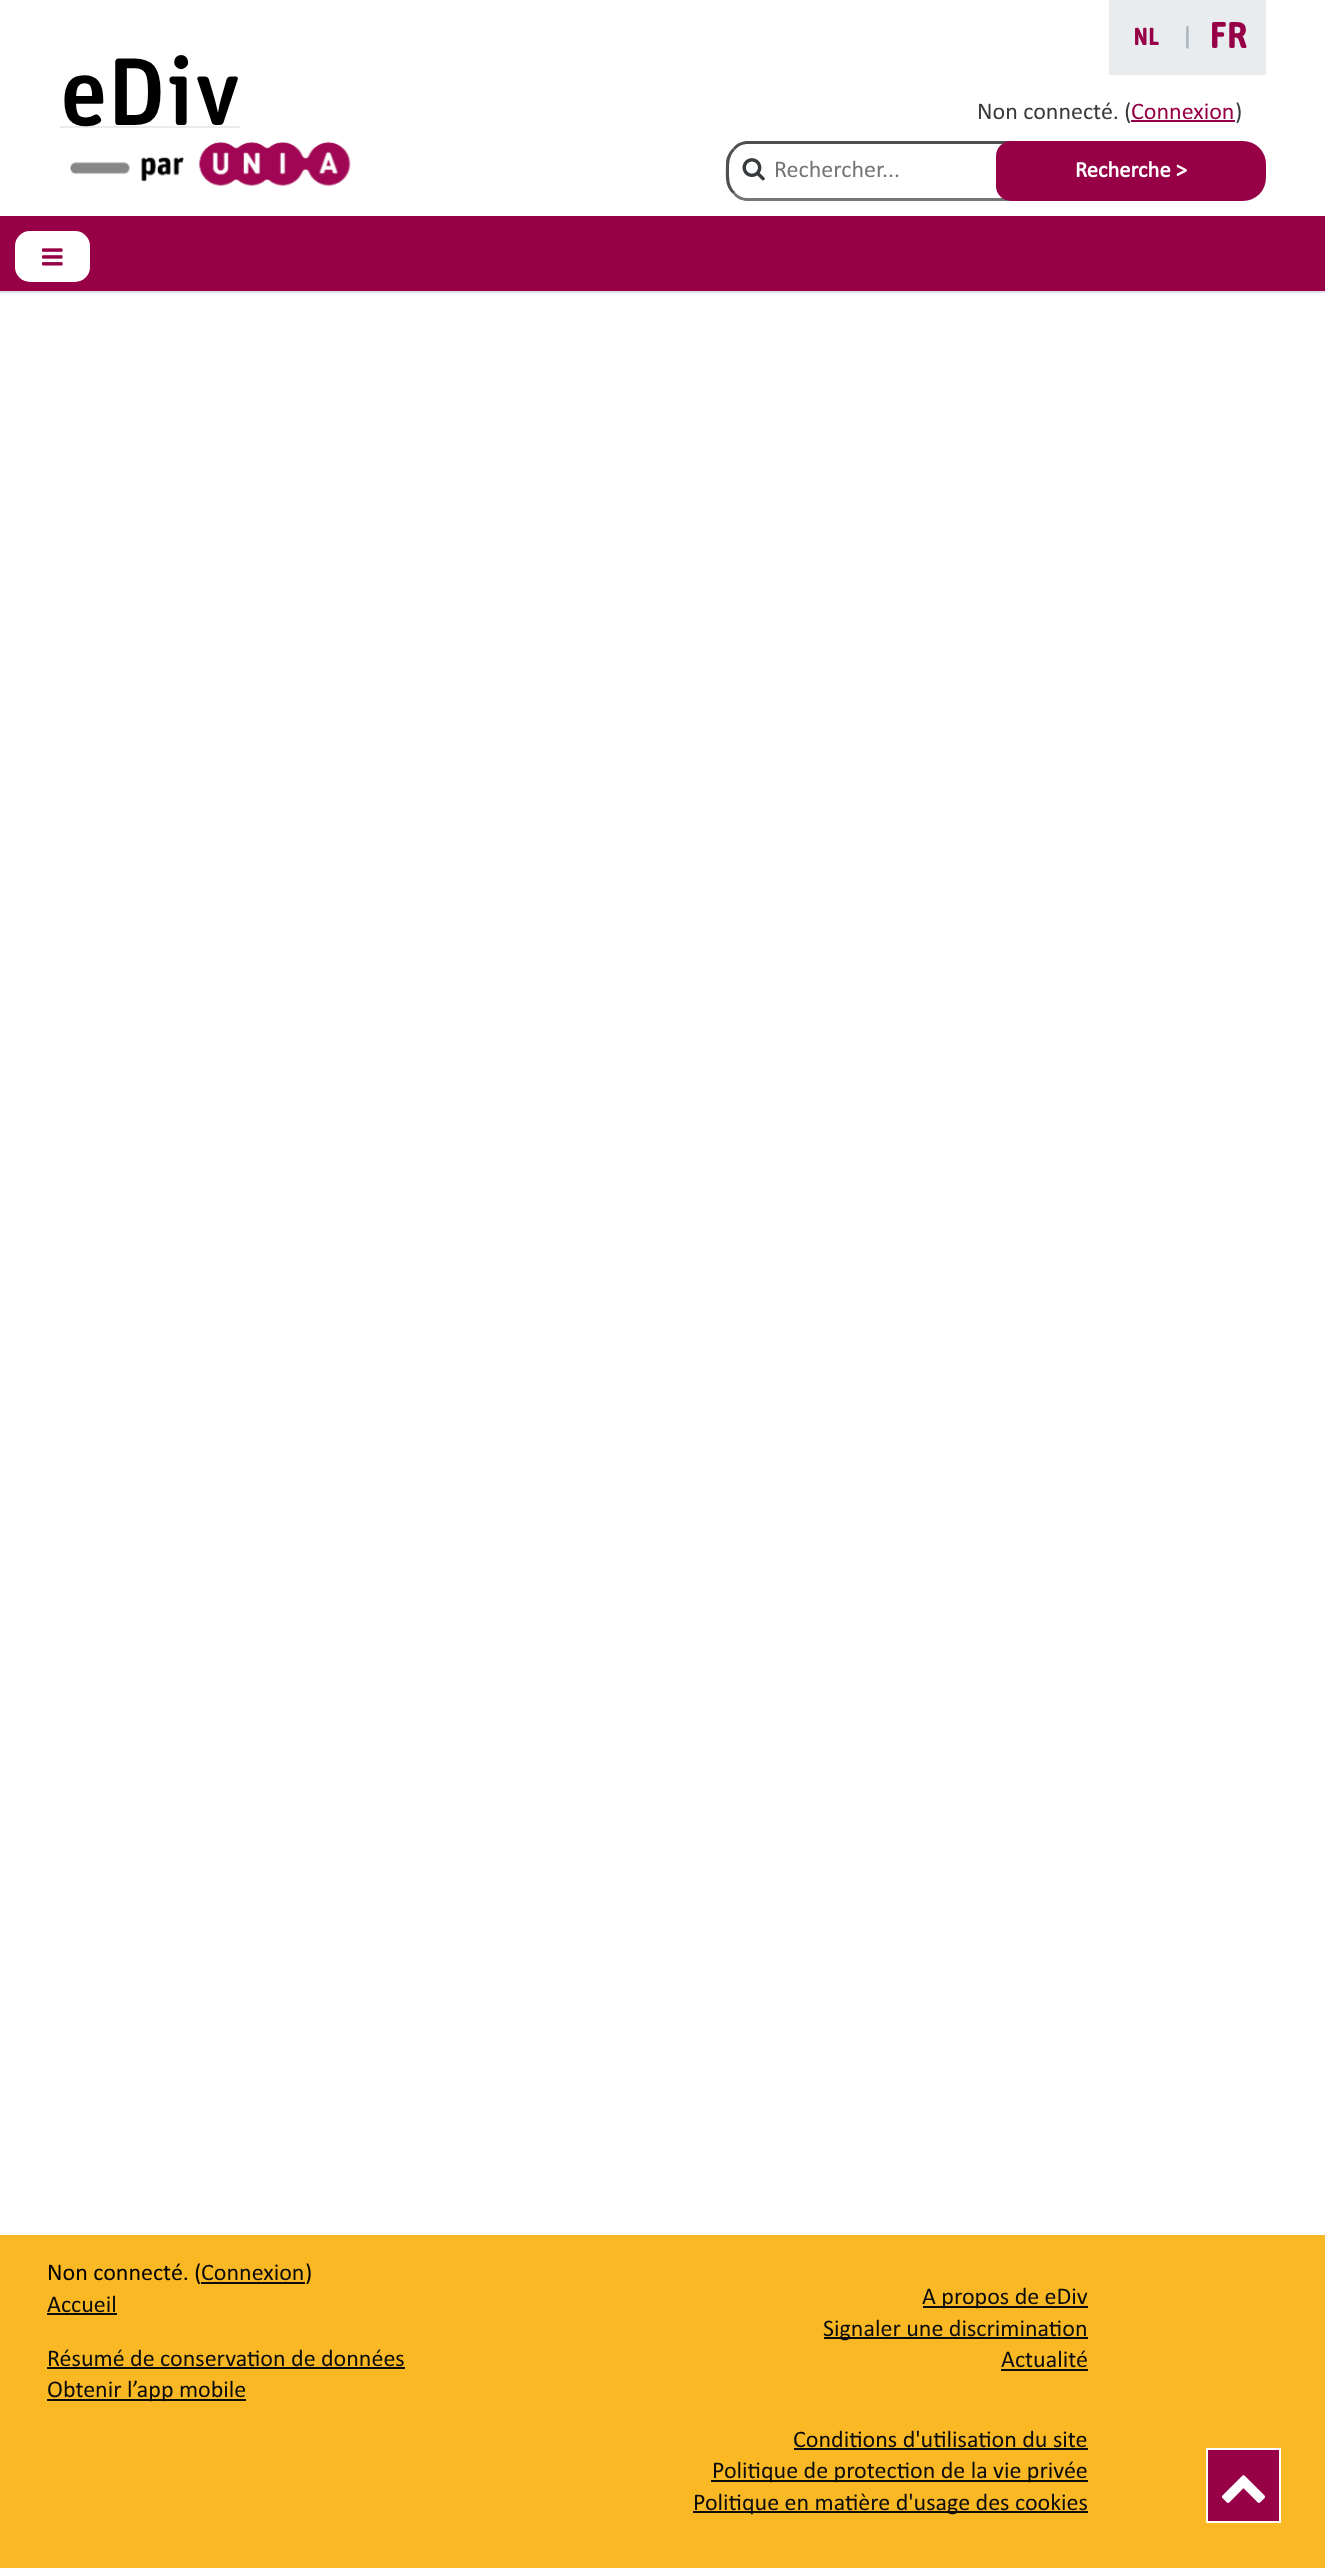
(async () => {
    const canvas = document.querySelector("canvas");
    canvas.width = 1325;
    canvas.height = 2568;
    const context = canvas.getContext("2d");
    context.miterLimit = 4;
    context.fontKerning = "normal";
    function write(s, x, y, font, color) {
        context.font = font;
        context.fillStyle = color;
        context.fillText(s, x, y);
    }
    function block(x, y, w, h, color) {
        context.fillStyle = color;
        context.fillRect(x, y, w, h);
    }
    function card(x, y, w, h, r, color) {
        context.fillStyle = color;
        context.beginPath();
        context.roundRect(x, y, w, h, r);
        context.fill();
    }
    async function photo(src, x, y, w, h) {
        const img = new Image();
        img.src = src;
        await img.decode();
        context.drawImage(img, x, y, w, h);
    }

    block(0, 0, 1325, 2568, "rgb(255, 255, 255)");
    block(0, 216, 1325, 75, "rgb(151, 0, 71)");
    block(0, 291, 1325, 2, "rgb(222, 226, 230)");
    block(1109, 0, 157, 75, "rgb(233, 236, 239)");
    write("NL", 1133, 45, "bold 24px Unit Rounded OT", "rgb(151, 0, 71)");
    write("|", 1184, 45, "bold 24px Unit Rounded OT", "rgb(173, 181, 189)");
    write("FR", 1209, 48, "bold 36px Unit Rounded OT", "rgb(151, 0, 71)");
    block(60, 126, 180, 2, "rgb(233, 236, 239)");
    write("eDiv", 60, 125, "500 96px Unit Rounded OT", "rgb(0, 0, 0)");
    await photo("media/1.png", 70, 141, 281, 45);
    write("Non connecté. (", 977, 119, "24px Calibri", "rgb(55, 58, 60)");
    write("Connexion", 1131, 119, "24px Calibri", "rgb(151, 0, 71)");
    block(1131, 120, 104, 2, "rgb(151, 0, 71)");
    write(")", 1235, 119, "24px Calibri", "rgb(55, 58, 60)");
    await photo("media/2.png", 742, 158, 23, 23);
    context.fillStyle = "rgb(79, 79, 79)";
    context.beginPath();
    context.moveTo(748, 141);
    context.bezierCurveTo(742, 141, 737, 143, 733, 148);
    context.lineTo(735, 150);
    context.bezierCurveTo(738, 146, 743, 144, 748, 144);
    context.lineTo(1060, 144);
    context.lineTo(1064, 141);
    context.closePath();
    context.fill();
    context.fillStyle = "rgb(118, 118, 118)";
    context.beginPath();
    context.moveTo(1064, 201);
    context.lineTo(1060, 198);
    context.lineTo(748, 198);
    context.bezierCurveTo(743, 198, 738, 196, 735, 192);
    context.lineTo(733, 194);
    context.bezierCurveTo(737, 199, 742, 201, 748, 201);
    context.closePath();
    context.fill();
    context.fillStyle = "rgb(79, 79, 79)";
    context.beginPath();
    context.moveTo(726, 164);
    context.bezierCurveTo(726, 175, 724, 186, 733, 194);
    context.lineTo(735, 192);
    context.bezierCurveTo(729, 186, 729, 179, 729, 171);
    context.bezierCurveTo(729, 163, 729, 156, 735, 150);
    context.lineTo(733, 148);
    context.bezierCurveTo(729, 152, 726, 157, 726, 164);
    context.closePath();
    context.fill();
    write("Rechercher...", 774, 177, "24px Calibri", "rgb(117, 117, 117)");
    context.fillStyle = "rgb(151, 0, 71)";
    context.beginPath();
    context.roundRect(996, 141, 270, 60, [15, 23, 23, 15]);
    context.fill();
    write("Recherche >", 1075, 177, "bold 22.5px Calibri", "rgb(255, 255, 255)");
    card(15, 231, 75, 51, 15, "rgb(255, 255, 255)");
    await photo("media/3.png", 42, 248, 21, 18);
    block(0, 2235, 1325, 333, "rgb(249, 184, 36)");
    write("Non connecté. (", 47, 2280, "24px Calibri", "rgb(0, 0, 0)");
    write("Connexion", 201, 2280, "24px Calibri", "rgb(12, 12, 12)");
    block(201, 2282, 104, 2, "rgb(12, 12, 12)");
    write(")", 305, 2280, "24px Calibri", "rgb(0, 0, 0)");
    write("Accueil", 47, 2312, "24px Calibri", "rgb(12, 12, 12)");
    block(47, 2313, 70, 2, "rgb(12, 12, 12)");
    write("Résumé de conservation de données", 47, 2366, "24px Calibri", "rgb(12, 12, 12)");
    block(47, 2367, 358, 2, "rgb(12, 12, 12)");
    block(47, 2399, 199, 2, "rgb(12, 12, 12)");
    write("Obtenir l’app mobile", 47, 2397, "24px Calibri", "rgb(12, 12, 12)");
    block(923, 2306, 165, 2, "rgb(12, 12, 12)");
    write("A propos de eDiv", 922, 2304, "24px Calibri", "rgb(12, 12, 12)");
    block(824, 2337, 264, 2, "rgb(12, 12, 12)");
    write("Signaler une discrimination", 823, 2336, "24px Calibri", "rgb(12, 12, 12)");
    write("Actualité", 1001, 2367, "24px Calibri", "rgb(12, 12, 12)");
    block(1001, 2369, 87, 2, "rgb(12, 12, 12)");
    write("Conditions d'utilisation du site", 793, 2447, "24px Calibri", "rgb(12, 12, 12)");
    block(794, 2448, 294, 2, "rgb(12, 12, 12)");
    block(711, 2480, 377, 2, "rgb(12, 12, 12)");
    write("Politique de protection de la vie privée", 712, 2478, "24px Calibri", "rgb(12, 12, 12)");
    block(693, 2511, 395, 2, "rgb(12, 12, 12)");
    write("Politique en matière d'usage des cookies", 693, 2510, "24px Calibri", "rgb(12, 12, 12)");
    context.fillStyle = "rgb(151, 0, 71)";
    context.beginPath();
    context.rect(1207, 2449, 73, 73);
    context.fill();
    context.strokeStyle = "rgb(255, 255, 255)";
    context.lineWidth = 2;
    context.stroke();
    await photo("media/4.png", 1221, 2475, 45, 28);
})();
